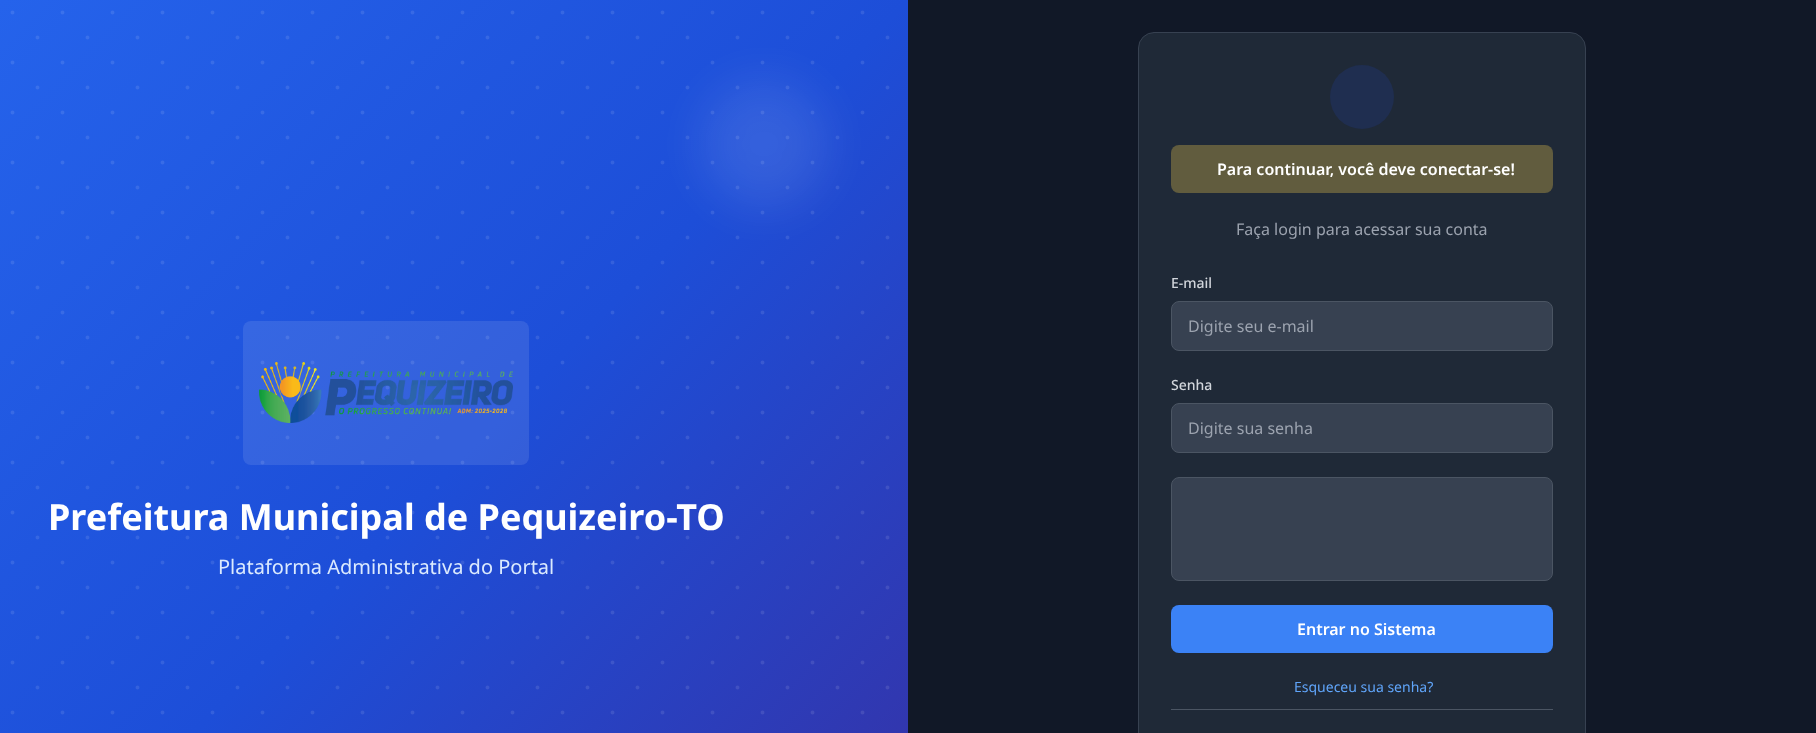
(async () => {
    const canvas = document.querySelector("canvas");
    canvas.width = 1816;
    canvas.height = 733;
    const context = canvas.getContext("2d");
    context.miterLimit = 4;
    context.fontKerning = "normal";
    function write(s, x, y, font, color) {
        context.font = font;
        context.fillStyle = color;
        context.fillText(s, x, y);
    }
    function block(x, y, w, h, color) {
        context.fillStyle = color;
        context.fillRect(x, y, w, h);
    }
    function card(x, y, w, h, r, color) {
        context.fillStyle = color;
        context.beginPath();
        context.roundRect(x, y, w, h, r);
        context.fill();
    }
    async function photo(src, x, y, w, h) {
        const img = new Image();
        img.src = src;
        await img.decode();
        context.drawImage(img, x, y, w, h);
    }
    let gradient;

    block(0, 0, 1816, 733, "rgb(17, 24, 39)");
    gradient = context.createLinearGradient(-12, 13, 920, 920);
    gradient.addColorStop(0, "rgb(37, 99, 235)");
    gradient.addColorStop(0.5, "rgb(29, 78, 216)");
    gradient.addColorStop(1, "rgb(55, 48, 163)");
    context.fillStyle = gradient;
    context.fillRect(0, 0, 908, 733);
    context.beginPath();
    context.moveTo(37.5, 37.5);
    context.lineTo(887.7, 37.5);
    context.strokeStyle = "rgba(255, 255, 255, 0.1)";
    context.lineWidth = 4;
    context.lineCap = "round";
    context.setLineDash([0, 50]);
    context.stroke();
    context.beginPath();
    context.moveTo(37.5, 87.5);
    context.lineTo(887.7, 87.5);
    context.stroke();
    context.beginPath();
    context.moveTo(37.5, 137.5);
    context.lineTo(887.7, 137.5);
    context.stroke();
    context.beginPath();
    context.moveTo(37.5, 187.5);
    context.lineTo(887.7, 187.5);
    context.stroke();
    context.beginPath();
    context.moveTo(37.5, 237.5);
    context.lineTo(887.7, 237.5);
    context.stroke();
    context.beginPath();
    context.moveTo(12.5, 12.5);
    context.lineTo(862.7, 12.5);
    context.stroke();
    context.beginPath();
    context.moveTo(12.5, 62.5);
    context.lineTo(862.7, 62.5);
    context.stroke();
    context.beginPath();
    context.moveTo(12.5, 112.5);
    context.lineTo(862.7, 112.5);
    context.stroke();
    context.beginPath();
    context.moveTo(12.5, 162.5);
    context.lineTo(862.7, 162.5);
    context.stroke();
    context.beginPath();
    context.moveTo(12.5, 212.5);
    context.lineTo(862.7, 212.5);
    context.stroke();
    context.beginPath();
    context.moveTo(12.5, 262.5);
    context.lineTo(862.7, 262.5);
    context.stroke();
    context.fillStyle = "rgba(255, 255, 255, 0.1)";
    context.filter = "blur(24px)";
    context.beginPath();
    context.roundRect(700, 80, 128, 128, 64);
    context.fill();
    context.filter = "none";
    context.beginPath();
    context.moveTo(37.5, 287.5);
    context.lineTo(887.7, 287.5);
    context.stroke();
    context.beginPath();
    context.moveTo(37.5, 337.5);
    context.lineTo(887.7, 337.5);
    context.stroke();
    context.beginPath();
    context.moveTo(37.5, 387.5);
    context.lineTo(887.7, 387.5);
    context.stroke();
    context.beginPath();
    context.moveTo(37.5, 437.5);
    context.lineTo(887.7, 437.5);
    context.stroke();
    context.beginPath();
    context.moveTo(37.5, 487.5);
    context.lineTo(887.7, 487.5);
    context.stroke();
    context.beginPath();
    context.moveTo(37.5, 537.5);
    context.lineTo(887.7, 537.5);
    context.stroke();
    context.beginPath();
    context.moveTo(37.5, 587.5);
    context.lineTo(887.7, 587.5);
    context.stroke();
    context.beginPath();
    context.moveTo(37.5, 637.5);
    context.lineTo(887.7, 637.5);
    context.stroke();
    context.beginPath();
    context.moveTo(37.5, 687.5);
    context.lineTo(887.7, 687.5);
    context.stroke();
    context.beginPath();
    context.moveTo(12.5, 312.5);
    context.lineTo(862.7, 312.5);
    context.stroke();
    context.beginPath();
    context.moveTo(12.5, 362.5);
    context.lineTo(862.7, 362.5);
    context.stroke();
    context.beginPath();
    context.moveTo(12.5, 412.5);
    context.lineTo(862.7, 412.5);
    context.stroke();
    context.beginPath();
    context.moveTo(12.5, 462.5);
    context.lineTo(862.7, 462.5);
    context.stroke();
    context.beginPath();
    context.moveTo(12.5, 512.5);
    context.lineTo(862.7, 512.5);
    context.stroke();
    context.beginPath();
    context.moveTo(12.5, 562.5);
    context.lineTo(862.7, 562.5);
    context.stroke();
    context.beginPath();
    context.moveTo(12.5, 612.5);
    context.lineTo(862.7, 612.5);
    context.stroke();
    context.beginPath();
    context.moveTo(12.5, 662.5);
    context.lineTo(862.7, 662.5);
    context.stroke();
    context.beginPath();
    context.moveTo(12.5, 712.5);
    context.lineTo(862.7, 712.5);
    context.stroke();
    card(243, 321, 286, 144, 8, "rgba(255, 255, 255, 0.1)");
    await photo("media/1.png", 259, 362, 254, 61);
    write("Prefeitura Municipal de Pequizeiro-TO", 48, 530, "bold 36px Noto Sans", "rgb(255, 255, 255)");
    write("Plataforma Administrativa do Portal", 218, 574, "20px Noto Sans", "rgb(219, 234, 254)");
    context.fillStyle = "rgb(31, 41, 55)";
    context.beginPath();
    context.roundRect(1138.5, 32.5, 447, 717, 15.5);
    context.fill();
    context.strokeStyle = "rgb(55, 65, 81)";
    context.lineWidth = 1;
    context.setLineDash([]);
    context.stroke();
    context.fillStyle = "rgb(31, 46, 80)";
    context.beginPath();
    context.arc(1362, 97, 32, 0, Math.PI * 2);
    context.fill();
    card(1171, 145, 382, 48, 8, "rgb(97, 92, 62)");
    write("Para continuar, você deve conectar-se!", 1217, 175, "600 16px Noto Sans", "rgb(255, 255, 255)");
    write("Faça login para acessar sua conta", 1236, 235, "16px Noto Sans", "rgb(156, 163, 175)");
    write("E-mail", 1171, 288, "500 14px Noto Sans", "rgb(209, 213, 219)");
    context.fillStyle = "rgb(55, 65, 81)";
    context.beginPath();
    context.roundRect(1171.5, 301.5, 381, 49, 7.5);
    context.fill();
    context.strokeStyle = "rgb(75, 85, 99)";
    context.stroke();
    write("Digite seu e-mail", 1188, 332, "16px Noto Sans", "rgb(156, 163, 175)");
    write("Senha", 1171, 390, "500 14px Noto Sans", "rgb(209, 213, 219)");
    context.fillStyle = "rgb(55, 65, 81)";
    context.beginPath();
    context.roundRect(1171.5, 403.5, 381, 49, 7.5);
    context.fill();
    context.stroke();
    write("Digite sua senha", 1188, 434, "16px Noto Sans", "rgb(156, 163, 175)");
    context.fillStyle = "rgb(55, 65, 81)";
    context.beginPath();
    context.roundRect(1171.5, 477.5, 381, 103, 7.5);
    context.fill();
    context.stroke();
    card(1171, 605, 382, 48, 8, "rgb(59, 130, 246)");
    write("Entrar no Sistema", 1297, 635, "600 16px Noto Sans", "rgb(255, 255, 255)");
    write("Esqueceu sua senha?", 1294, 692, "14px Noto Sans", "rgb(96, 165, 250)");
    block(1171, 709, 382, 1, "rgb(75, 85, 99)");
})();
